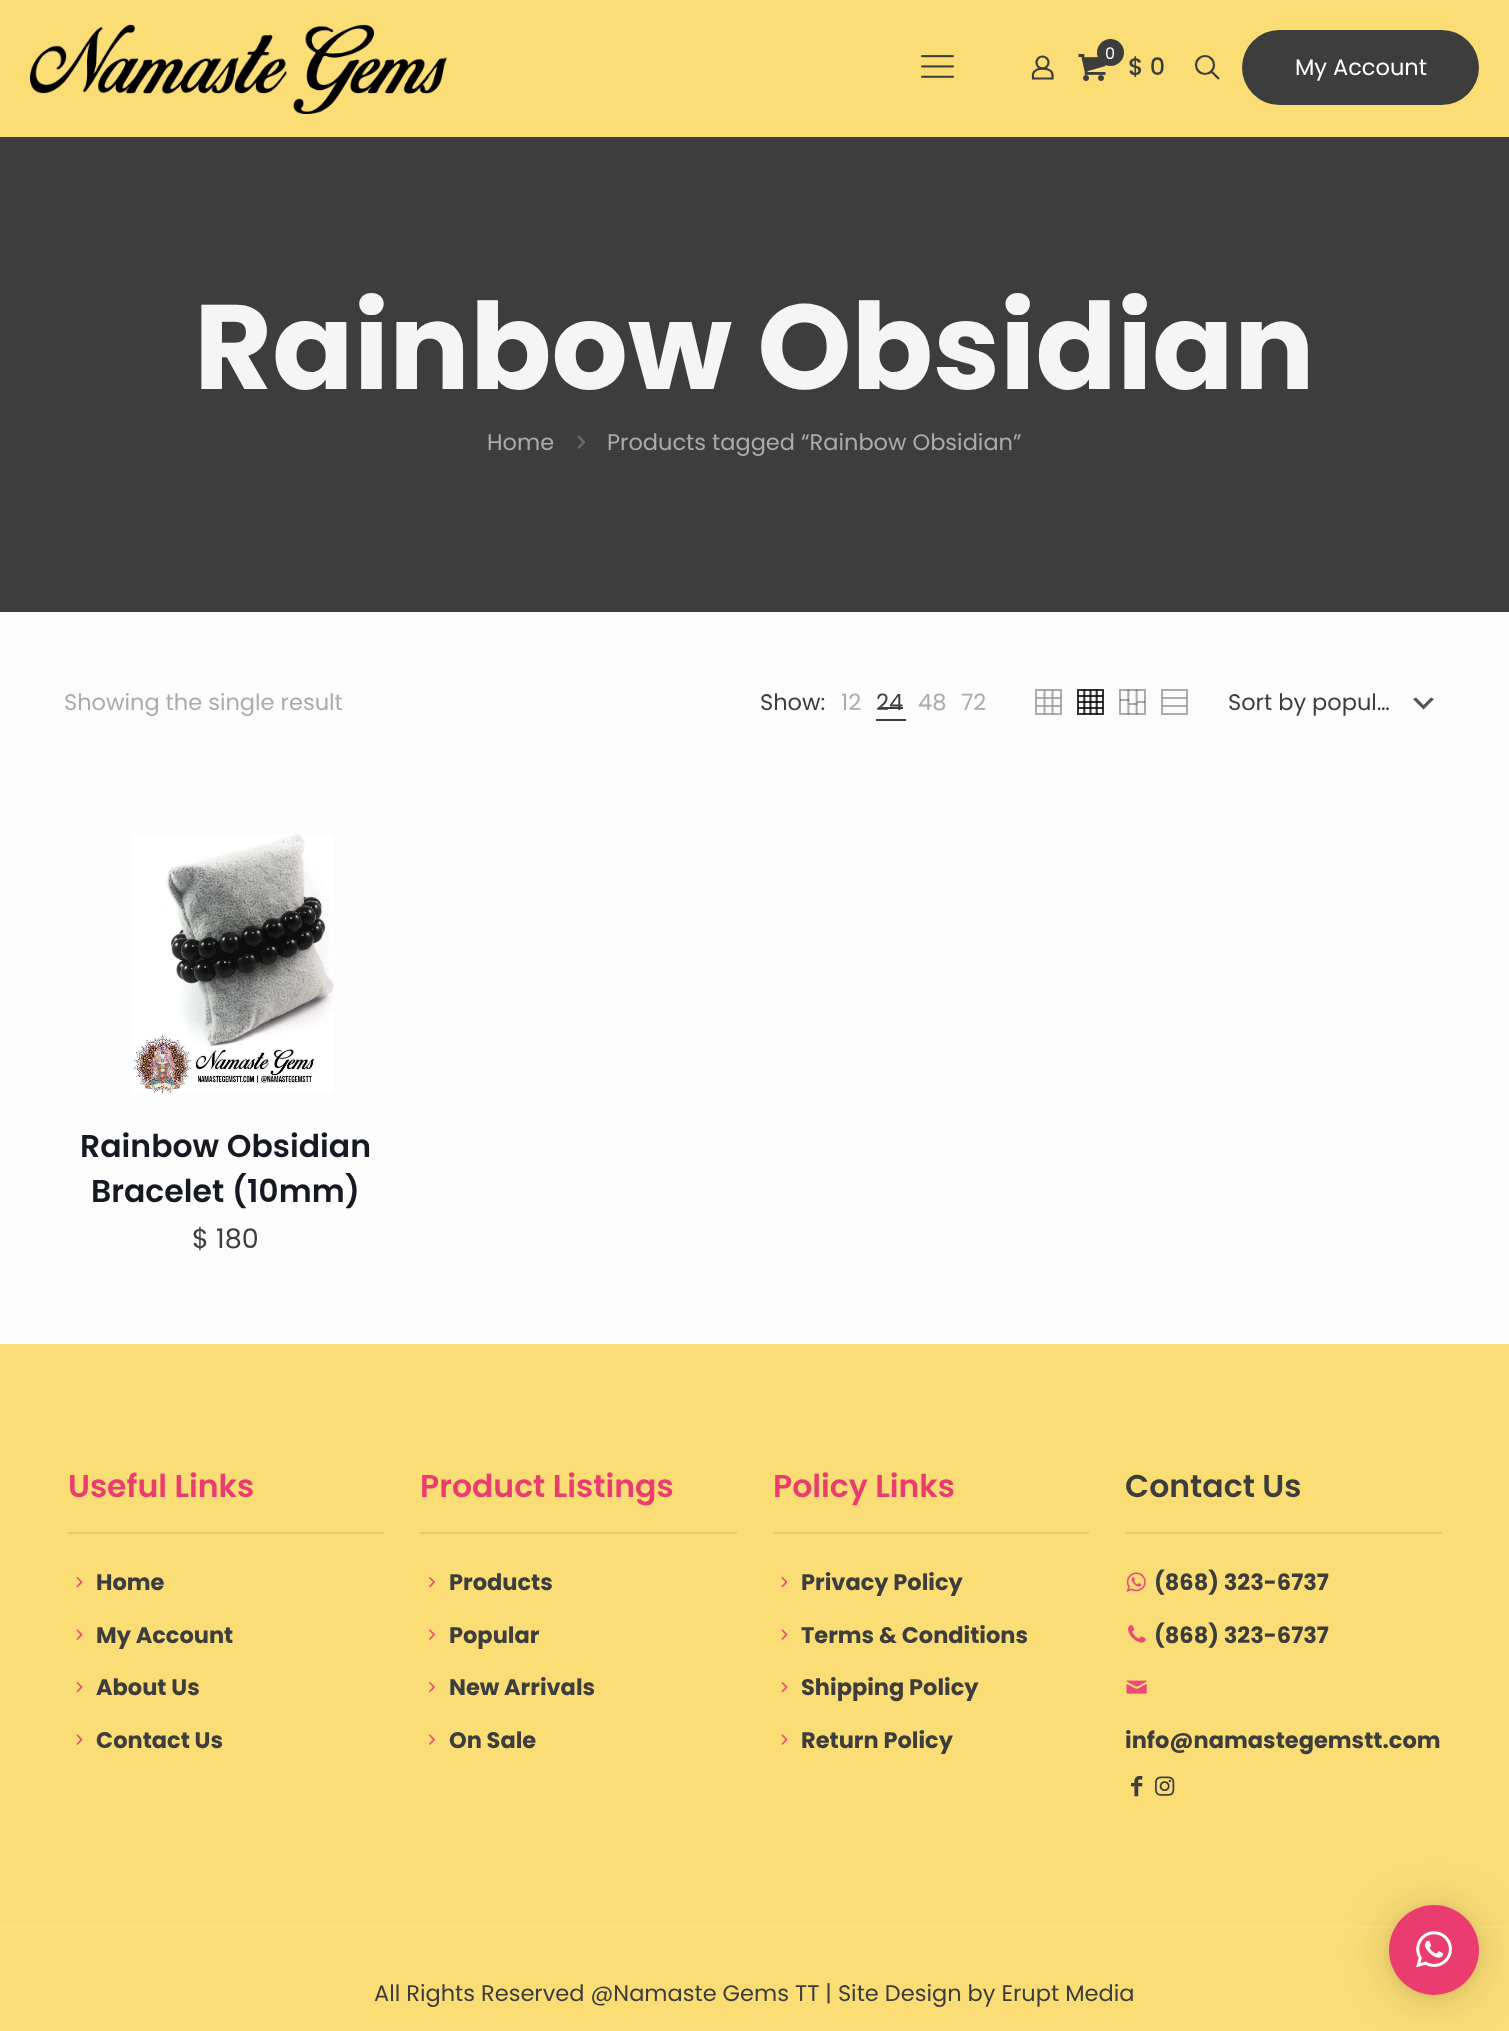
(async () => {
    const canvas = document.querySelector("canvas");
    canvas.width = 1509;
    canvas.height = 2031;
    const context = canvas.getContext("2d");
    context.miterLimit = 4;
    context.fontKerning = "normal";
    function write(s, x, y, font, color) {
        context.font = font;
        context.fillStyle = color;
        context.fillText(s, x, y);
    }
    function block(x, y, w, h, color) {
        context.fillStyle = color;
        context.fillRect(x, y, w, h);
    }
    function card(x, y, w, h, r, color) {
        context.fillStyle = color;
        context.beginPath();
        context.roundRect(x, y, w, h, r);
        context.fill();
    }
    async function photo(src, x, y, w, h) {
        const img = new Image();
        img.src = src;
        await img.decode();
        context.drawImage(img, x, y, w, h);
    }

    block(0, 0, 1509, 2031, "rgb(252, 252, 252)");
    block(0, 0, 1509, 137, "rgb(250, 221, 117)");
    await photo("media/1.png", 30, 24, 417, 90);
    await photo("media/2.png", 921, 55, 33, 23);
    context.beginPath();
    context.arc(1042.5, 62.5, 6, 0, Math.PI * 2);
    context.strokeStyle = "rgb(61, 61, 61)";
    context.lineWidth = 2.2;
    context.stroke();
    context.beginPath();
    context.moveTo(1052.5, 75);
    context.lineTo(1052.5, 78.5);
    context.lineTo(1033, 78.5);
    context.lineTo(1033, 74);
    context.bezierCurveTo(1035, 66.5, 1052.5, 67, 1052.5, 75);
    context.closePath();
    context.stroke();
    await photo("media/3.png", 1078, 54, 28, 27);
    context.fillStyle = "rgb(61, 61, 61)";
    context.beginPath();
    context.arc(1110.5, 52.5, 13.5, 0, Math.PI * 2);
    context.fill();
    write("0", 1105, 59, "16px Poppins", "rgb(255, 255, 255)");
    write("$ 0", 1128, 75, "500 24px Poppins", "rgb(61, 61, 61)");
    context.beginPath();
    context.arc(1205, 65, 9, 0, Math.PI * 2);
    context.stroke();
    context.beginPath();
    context.moveTo(1211.5, 71.5);
    context.lineTo(1219, 79);
    context.stroke();
    card(1242, 30, 237, 75, 37.5, "rgb(61, 61, 61)");
    write("My Account", 1295, 75, "22.5px Poppins", "rgb(255, 255, 255)");
    block(0, 137, 1509, 475, "rgb(61, 61, 61)");
    write("Rainbow Obsidian", 194, 389, "bold 120px Poppins", "rgb(245, 245, 245)");
    write("Home", 487, 450, "22.5px Poppins", "rgb(171, 171, 171)");
    await photo("media/4.png", 577, 435, 8, 14);
    write("Products tagged “Rainbow Obsidian”", 607, 450, "22.5px Poppins", "rgb(171, 171, 171)");
    write("Showing the single result", 64, 710, "22.5px Poppins", "rgb(171, 171, 171)");
    write("Show:", 760, 710, "22.5px Poppins", "rgb(61, 61, 61)");
    write("12", 841, 710, "22.5px Poppins", "rgb(171, 171, 171)");
    block(881, 707, 22, 2, "rgb(61, 61, 61)");
    write("24", 876, 710, "22.5px Poppins", "rgb(61, 61, 61)");
    block(876, 719, 30, 2, "rgb(61, 61, 61)");
    write("48", 918, 710, "22.5px Poppins", "rgb(171, 171, 171)");
    write("72", 961, 710, "22.5px Poppins", "rgb(171, 171, 171)");
    context.beginPath();
    context.moveTo(1044.5, 714.5);
    context.lineTo(1044.5, 689.5);
    context.moveTo(1052.5, 714.5);
    context.lineTo(1052.5, 689.5);
    context.strokeStyle = "rgb(171, 171, 171)";
    context.lineWidth = 2.1;
    context.stroke();
    context.strokeStyle = "rgba(151, 151, 151, 0.8)";
    context.lineWidth = 2;
    context.strokeRect(1036, 690, 25, 24);
    block(1036, 697, 25, 2, "rgba(151, 151, 151, 0.8)");
    block(1036, 705, 25, 2, "rgba(151, 151, 151, 0.8)");
    await photo("media/5.png", 1077, 689, 27, 26);
    await photo("media/6.png", 1119, 689, 27, 26);
    context.strokeStyle = "rgb(171, 171, 171)";
    context.strokeRect(1162, 690, 25, 24);
    block(1162, 697, 25, 2, "rgba(151, 151, 151, 0.8)");
    block(1162, 705, 25, 2, "rgba(151, 151, 151, 0.8)");
    context.fillStyle = "rgb(85, 85, 85)";
    context.beginPath();
    context.moveTo(1416, 697.5);
    context.lineTo(1423.5, 705);
    context.lineTo(1431, 697.5);
    context.lineTo(1434, 699);
    context.lineTo(1423.5, 709.5);
    context.lineTo(1413, 699);
    context.closePath();
    context.fill();
    write("Sort by popul…", 1228, 710, "22.5px Poppins", "rgb(61, 61, 61)");
    await photo("media/7.png", 132, 834, 202, 260);
    write("Rainbow Obsidian", 80, 1157, "600 31.5px Poppins", "rgb(22, 25, 34)");
    write("Bracelet (10mm)", 91, 1202, "600 31.5px Poppins", "rgb(22, 25, 34)");
    write("$ 180", 192, 1248, "27px Poppins", "rgb(61, 61, 61)");
    block(0, 1344, 1509, 687, "rgb(250, 221, 117)");
    write("Useful Links", 68, 1497, "600 31.5px Poppins", "rgb(235, 60, 112)");
    block(68, 1532, 316, 2, "rgb(230, 203, 108)");
    await photo("media/8.png", 76, 1577, 7, 11);
    write("Home", 96, 1590, "bold 22.5px Poppins", "rgb(61, 61, 61)");
    await photo("media/9.png", 76, 1629, 7, 11);
    write("My Account", 96, 1643, "bold 22.5px Poppins", "rgb(61, 61, 61)");
    await photo("media/8.png", 76, 1682, 7, 11);
    write("About Us", 96, 1695, "bold 22.5px Poppins", "rgb(61, 61, 61)");
    await photo("media/9.png", 76, 1734, 7, 11);
    write("Contact Us", 96, 1748, "bold 22.5px Poppins", "rgb(61, 61, 61)");
    write("Product Listings", 420, 1497, "600 31.5px Poppins", "rgb(235, 60, 112)");
    block(420, 1532, 317, 2, "rgb(230, 203, 108)");
    await photo("media/10.png", 429, 1577, 6, 11);
    write("Products", 449, 1590, "bold 22.5px Poppins", "rgb(61, 61, 61)");
    await photo("media/11.png", 429, 1629, 6, 11);
    write("Popular", 449, 1643, "bold 22.5px Poppins", "rgb(61, 61, 61)");
    await photo("media/10.png", 429, 1682, 6, 11);
    write("New Arrivals", 449, 1695, "bold 22.5px Poppins", "rgb(61, 61, 61)");
    await photo("media/11.png", 429, 1734, 6, 11);
    write("On Sale", 449, 1748, "bold 22.5px Poppins", "rgb(61, 61, 61)");
    write("Policy Links", 773, 1497, "600 31.5px Poppins", "rgb(235, 60, 112)");
    block(773, 1532, 316, 2, "rgb(230, 203, 108)");
    await photo("media/8.png", 781, 1577, 7, 11);
    write("Privacy Policy", 801, 1590, "bold 22.5px Poppins", "rgb(61, 61, 61)");
    await photo("media/9.png", 781, 1629, 7, 11);
    write("Terms & Conditions", 801, 1643, "bold 22.5px Poppins", "rgb(61, 61, 61)");
    await photo("media/8.png", 781, 1682, 7, 11);
    write("Shipping Policy", 801, 1695, "bold 22.5px Poppins", "rgb(61, 61, 61)");
    await photo("media/9.png", 781, 1734, 7, 11);
    write("Return Policy", 801, 1748, "bold 22.5px Poppins", "rgb(61, 61, 61)");
    write("Contact Us", 1125, 1497, "600 31.5px Poppins", "rgb(61, 61, 61)");
    block(1125, 1532, 317, 2, "rgb(230, 203, 108)");
    await photo("media/12.png", 1126, 1572, 20, 20);
    write("(868) 323-6737", 1154, 1590, "bold 22.5px Poppins", "rgb(61, 61, 61)");
    await photo("media/13.png", 1128, 1625, 18, 18);
    write("(868) 323-6737", 1154, 1643, "bold 22.5px Poppins", "rgb(61, 61, 61)");
    await photo("media/14.png", 1126, 1680, 21, 14);
    write("info@namastegemstt.com", 1125, 1748, "bold 22.5px Poppins", "rgb(61, 61, 61)");
    await photo("media/15.png", 1131, 1776, 12, 21);
    await photo("media/16.png", 1155, 1776, 20, 20);
    block(0, 1926, 1509, 2, "rgb(251, 224, 131)");
    write("All Rights Reserved @Namaste Gems TT | Site Design by Erupt Media", 374, 2001, "22.5px Poppins", "rgb(61, 61, 61)");
    context.fillStyle = "rgba(0, 0, 0, 0.16)";
    context.filter = "blur(24px)";
    context.beginPath();
    context.roundRect(1389, 1908, 90, 90, 45);
    context.fill();
    context.filter = "none";
    context.fillStyle = "rgba(0, 0, 0, 0.06)";
    context.filter = "blur(4.5px)";
    context.beginPath();
    context.roundRect(1389, 1907, 90, 90, 45);
    context.fill();
    context.filter = "none";
    context.fillStyle = "rgb(235, 60, 112)";
    context.beginPath();
    context.arc(1434, 1950, 45, 0, Math.PI * 2);
    context.fill();
    await photo("media/17.png", 1416, 1931, 36, 37);
})();
